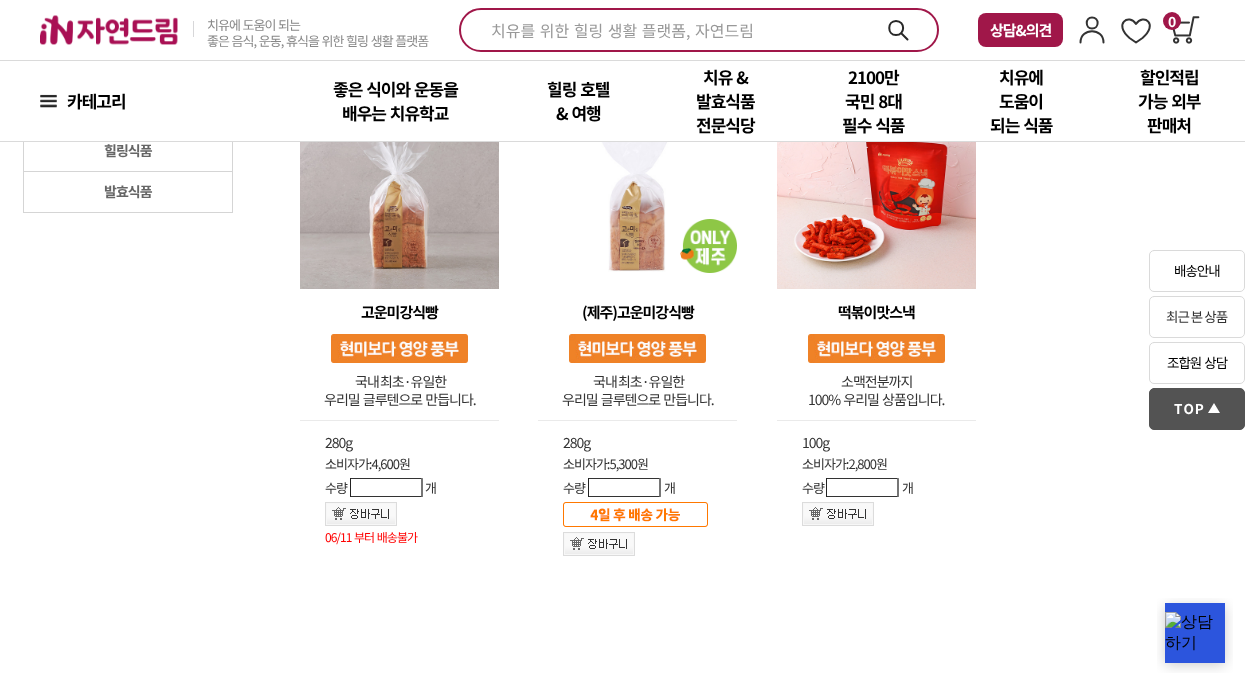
(async () => {
    const canvas = document.querySelector("canvas");
    canvas.width = 1245;
    canvas.height = 683;
    const context = canvas.getContext("2d");
    context.miterLimit = 4;
    context.fontKerning = "none";
    function write(s, x, y, font, color) {
        context.font = font;
        context.fillStyle = color;
        context.fillText(s, x, y);
    }
    function block(x, y, w, h, color) {
        context.fillStyle = color;
        context.fillRect(x, y, w, h);
    }
    function card(x, y, w, h, r, color) {
        context.fillStyle = color;
        context.beginPath();
        context.roundRect(x, y, w, h, r);
        context.fill();
    }
    async function photo(src, x, y, w, h) {
        const img = new Image();
        img.src = src;
        await img.decode();
        context.drawImage(img, x, y, w, h);
    }

    block(0, 0, 1245, 683, "rgb(255, 255, 255)");
    block(0, 60, 1245, 1, "rgb(218, 218, 218)");
    await photo("media/1.png", 40, 15, 138, 30);
    block(193, 21, 1, 16, "rgb(215, 215, 217)");
    context.letterSpacing = "-1px";
    context.wordSpacing = "0.75px";
    write("치유에 도움이 되는", 207, 30, "13px Noto Sans KR", "rgb(136, 136, 136)");
    write("좋은 음식, 운동, 휴식을 위한 힐링 생활 플랫폼", 207, 46, "13px Noto Sans KR", "rgb(136, 136, 136)");
    context.beginPath();
    context.roundRect(460, 9, 478, 42, 21);
    context.strokeStyle = "rgb(160, 23, 73)";
    context.lineWidth = 2;
    context.stroke();
    context.letterSpacing = "0px";
    context.wordSpacing = "1px";
    write("치유를 위한 힐링 생활 플랫폼, 자연드림", 491, 37, "16px Noto Sans KR", "rgb(153, 153, 153)");
    context.beginPath();
    context.moveTo(901, 33);
    context.lineTo(907.5, 39.5);
    context.moveTo(896, 35);
    context.bezierCurveTo(905.5, 35, 905.5, 21, 896, 21);
    context.bezierCurveTo(887, 21, 887, 35, 896, 35);
    context.closePath();
    context.strokeStyle = "rgb(40, 40, 40)";
    context.lineCap = "round";
    context.lineJoin = "round";
    context.stroke();
    card(978, 13, 85, 34, 8, "rgb(160, 23, 73)");
    context.letterSpacing = "-1px";
    context.wordSpacing = "0px";
    write("상담&의견", 990, 36, "bold 15px Noto Sans KR", "rgb(255, 255, 255)");
    context.beginPath();
    context.moveTo(1080.5, 42.5);
    context.bezierCurveTo(1080.5, 27.5, 1103.5, 27.5, 1103.5, 42.5);
    context.moveTo(1092, 28.5);
    context.bezierCurveTo(1099.5, 28.5, 1099.5, 17.5, 1092, 17.5);
    context.bezierCurveTo(1085, 17.5, 1085, 28.5, 1092, 28.5);
    context.closePath();
    context.strokeStyle = "rgb(51, 51, 51)";
    context.stroke();
    context.beginPath();
    context.moveTo(1136, 24);
    context.bezierCurveTo(1129, 13, 1113, 24, 1129.5, 38);
    context.lineTo(1136, 42.5);
    context.lineTo(1142.5, 38);
    context.bezierCurveTo(1159, 24, 1143.5, 13, 1136, 24);
    context.closePath();
    context.stroke();
    await photo("media/2.png", 1172, 16, 28, 28);
    context.fillStyle = "rgb(160, 23, 73)";
    context.beginPath();
    context.arc(1172, 21, 9, 0, Math.PI * 2);
    context.fill();
    write("0", 1168, 27, "bold 14px Noto Sans KR", "rgb(255, 255, 255)");
    block(0, 141, 1245, 1, "rgb(218, 218, 218)");
    await photo("media/3.png", 40, 94, 17, 14);
    write("카테고리", 67, 108, "bold 17px Noto Sans KR", "rgb(0, 0, 0)");
    context.wordSpacing = "1px";
    write("좋은 식이와 운동을", 333, 96, "bold 17px Noto Sans KR", "rgb(0, 0, 0)");
    write("배우는 치유학교", 342, 120, "bold 17px Noto Sans KR", "rgb(0, 0, 0)");
    write("힐링 호텔", 547, 96, "bold 17px Noto Sans KR", "rgb(0, 0, 0)");
    write("& 여행", 556, 120, "bold 17px Noto Sans KR", "rgb(0, 0, 0)");
    write("치유 &", 703, 84, "bold 17px Noto Sans KR", "rgb(0, 0, 0)");
    context.wordSpacing = "0px";
    write("발효식품", 696, 108, "bold 17px Noto Sans KR", "rgb(0, 0, 0)");
    write("전문식당", 696, 132, "bold 17px Noto Sans KR", "rgb(0, 0, 0)");
    write("2100만", 848, 84, "bold 17px Noto Sans KR", "rgb(0, 0, 0)");
    context.wordSpacing = "1px";
    write("국민 8대", 845, 108, "bold 17px Noto Sans KR", "rgb(0, 0, 0)");
    write("필수 식품", 842, 132, "bold 17px Noto Sans KR", "rgb(0, 0, 0)");
    context.wordSpacing = "0px";
    write("치유에", 999, 84, "bold 17px Noto Sans KR", "rgb(0, 0, 0)");
    write("도움이", 999, 108, "bold 17px Noto Sans KR", "rgb(0, 0, 0)");
    context.wordSpacing = "1px";
    write("되는 식품", 990, 132, "bold 17px Noto Sans KR", "rgb(0, 0, 0)");
    context.wordSpacing = "0px";
    write("할인적립", 1140, 84, "bold 17px Noto Sans KR", "rgb(0, 0, 0)");
    context.wordSpacing = "1px";
    write("가능 외부", 1138, 108, "bold 17px Noto Sans KR", "rgb(0, 0, 0)");
    context.wordSpacing = "0px";
    write("판매처", 1147, 132, "bold 17px Noto Sans KR", "rgb(0, 0, 0)");
    block(232, 142, 1, 71, "rgb(213, 213, 213)");
    block(23, 142, 1, 71, "rgb(213, 213, 213)");
    block(24, 171, 208, 1, "rgb(213, 213, 213)");
    write("힐링식품", 104, 156, "bold 14px Noto Sans KR", "rgb(102, 102, 102)");
    block(24, 212, 208, 1, "rgb(213, 213, 213)");
    write("발효식품", 104, 197, "bold 14px Noto Sans KR", "rgb(102, 102, 102)");
    await photo("media/4.png", 300, 142, 199, 147);
    write("고운미강식빵", 361, 318, "bold 15px Noto Sans KR", "rgb(0, 0, 0)");
    await photo("media/5.png", 331, 334, 137, 29);
    context.wordSpacing = "-1px";
    write("국내 최초·유일한", 355, 387, "14px Noto Sans KR", "rgb(51, 51, 51)");
    context.wordSpacing = "1px";
    write("우리밀 글루텐으로 만듭니다.", 324, 405, "14px Noto Sans KR", "rgb(51, 51, 51)");
    block(300, 420, 199, 1, "rgb(234, 234, 234)");
    context.wordSpacing = "0px";
    write("280g", 325, 448, "14px Noto Sans KR", "rgb(51, 51, 51)");
    write("소비자가:4,600원", 325, 469, "13px Noto Sans KR", "rgb(51, 51, 51)");
    write("수량", 325, 493, "13px Noto Sans KR", "rgb(51, 51, 51)");
    context.beginPath();
    context.moveTo(350, 478);
    context.lineTo(423, 478);
    context.lineTo(421, 479);
    context.lineTo(351, 479);
    context.closePath();
    context.fill();
    context.fillStyle = "rgb(118, 118, 118)";
    context.beginPath();
    context.moveTo(423, 478);
    context.lineTo(423, 497);
    context.lineTo(421, 496);
    context.lineTo(421, 479);
    context.closePath();
    context.fill();
    context.fillStyle = "rgb(51, 51, 51)";
    context.beginPath();
    context.moveTo(423, 497);
    context.lineTo(350, 497);
    context.lineTo(351, 496);
    context.lineTo(421, 496);
    context.closePath();
    context.fill();
    block(350, 478, 1, 19, "rgb(34, 34, 34)");
    write("개", 425, 493, "13px Noto Sans KR", "rgb(51, 51, 51)");
    await photo("media/6.png", 325, 502, 72, 24);
    context.wordSpacing = "1px";
    write("06/11 부터 배송불가", 325, 542, "12px Noto Sans KR", "rgb(255, 0, 0)");
    await photo("media/7.png", 595, 142, 78, 130);
    await photo("media/8.png", 680, 219, 57, 54);
    context.wordSpacing = "0px";
    write("(제주)고운미강식빵", 582, 318, "bold 15px Noto Sans KR", "rgb(0, 0, 0)");
    await photo("media/5.png", 569, 334, 137, 29);
    context.wordSpacing = "-1px";
    write("국내 최초·유일한", 593, 387, "14px Noto Sans KR", "rgb(51, 51, 51)");
    context.wordSpacing = "1px";
    write("우리밀 글루텐으로 만듭니다.", 562, 405, "14px Noto Sans KR", "rgb(51, 51, 51)");
    block(538, 420, 199, 1, "rgb(234, 234, 234)");
    context.wordSpacing = "0px";
    write("280g", 563, 448, "14px Noto Sans KR", "rgb(51, 51, 51)");
    write("소비자가:5,300원", 563, 469, "13px Noto Sans KR", "rgb(51, 51, 51)");
    write("수량", 563, 493, "13px Noto Sans KR", "rgb(51, 51, 51)");
    context.beginPath();
    context.moveTo(588, 478);
    context.lineTo(661, 478);
    context.lineTo(659, 479);
    context.lineTo(589, 479);
    context.closePath();
    context.fill();
    context.fillStyle = "rgb(118, 118, 118)";
    context.beginPath();
    context.moveTo(661, 478);
    context.lineTo(661, 497);
    context.lineTo(659, 496);
    context.lineTo(659, 479);
    context.closePath();
    context.fill();
    context.fillStyle = "rgb(51, 51, 51)";
    context.beginPath();
    context.moveTo(661, 497);
    context.lineTo(588, 497);
    context.lineTo(589, 496);
    context.lineTo(659, 496);
    context.closePath();
    context.fill();
    block(588, 478, 1, 19, "rgb(34, 34, 34)");
    write("개", 664, 493, "13px Noto Sans KR", "rgb(51, 51, 51)");
    await photo("media/9.png", 563, 502, 145, 25);
    await photo("media/6.png", 563, 532, 72, 24);
    await photo("media/10.png", 777, 142, 199, 147);
    write("떡볶이맛스낵", 838, 318, "bold 15px Noto Sans KR", "rgb(0, 0, 0)");
    await photo("media/5.png", 808, 334, 137, 29);
    write("소맥전분까지", 841, 387, "14px Noto Sans KR", "rgb(51, 51, 51)");
    context.wordSpacing = "1px";
    write("100% 우리밀 상품입니다.", 808, 405, "14px Noto Sans KR", "rgb(51, 51, 51)");
    block(777, 420, 199, 1, "rgb(234, 234, 234)");
    context.wordSpacing = "0px";
    write("100g", 802, 448, "14px Noto Sans KR", "rgb(51, 51, 51)");
    write("소비자가:2,800원", 802, 469, "13px Noto Sans KR", "rgb(51, 51, 51)");
    write("수량", 802, 493, "13px Noto Sans KR", "rgb(51, 51, 51)");
    context.beginPath();
    context.moveTo(826, 478);
    context.lineTo(899, 478);
    context.lineTo(897, 479);
    context.lineTo(827, 479);
    context.closePath();
    context.fill();
    context.fillStyle = "rgb(118, 118, 118)";
    context.beginPath();
    context.moveTo(899, 478);
    context.lineTo(899, 497);
    context.lineTo(897, 496);
    context.lineTo(897, 479);
    context.closePath();
    context.fill();
    context.fillStyle = "rgb(51, 51, 51)";
    context.beginPath();
    context.moveTo(899, 497);
    context.lineTo(826, 497);
    context.lineTo(827, 496);
    context.lineTo(897, 496);
    context.closePath();
    context.fill();
    block(826, 478, 1, 19, "rgb(34, 34, 34)");
    write("개", 902, 493, "13px Noto Sans KR", "rgb(51, 51, 51)");
    await photo("media/6.png", 802, 502, 72, 24);
    context.beginPath();
    context.roundRect(1149.5, 250.5, 95, 41, 4.5);
    context.strokeStyle = "rgb(218, 218, 218)";
    context.lineWidth = 1;
    context.lineJoin = "miter";
    context.stroke();
    write("배송안내", 1174, 276, "13.5px Noto Sans KR", "rgb(0, 0, 0)");
    context.beginPath();
    context.roundRect(1149.5, 296.5, 95, 41, 4.5);
    context.stroke();
    write("최근 본 상품", 1166, 322, "13.5px Noto Sans KR", "rgb(51, 51, 51)");
    context.beginPath();
    context.roundRect(1149.5, 342.5, 95, 41, 4.5);
    context.stroke();
    context.wordSpacing = "1px";
    write("조합원 상담", 1167, 368, "13.5px Noto Sans KR", "rgb(0, 0, 0)");
    context.fillStyle = "rgb(83, 83, 83)";
    context.beginPath();
    context.roundRect(1149.5, 388.5, 95, 41, 4.5);
    context.fill();
    context.strokeStyle = "rgb(83, 83, 83)";
    context.stroke();
    await photo("media/11.png", 1208, 403, 12, 10);
    context.letterSpacing = "1px";
    context.wordSpacing = "0px";
    write("TOP", 1174, 414, "bold 13.5px Noto Sans KR", "rgb(255, 255, 255)");
    await photo("media/12.png", 1157, 598, 76, 75);
})();
